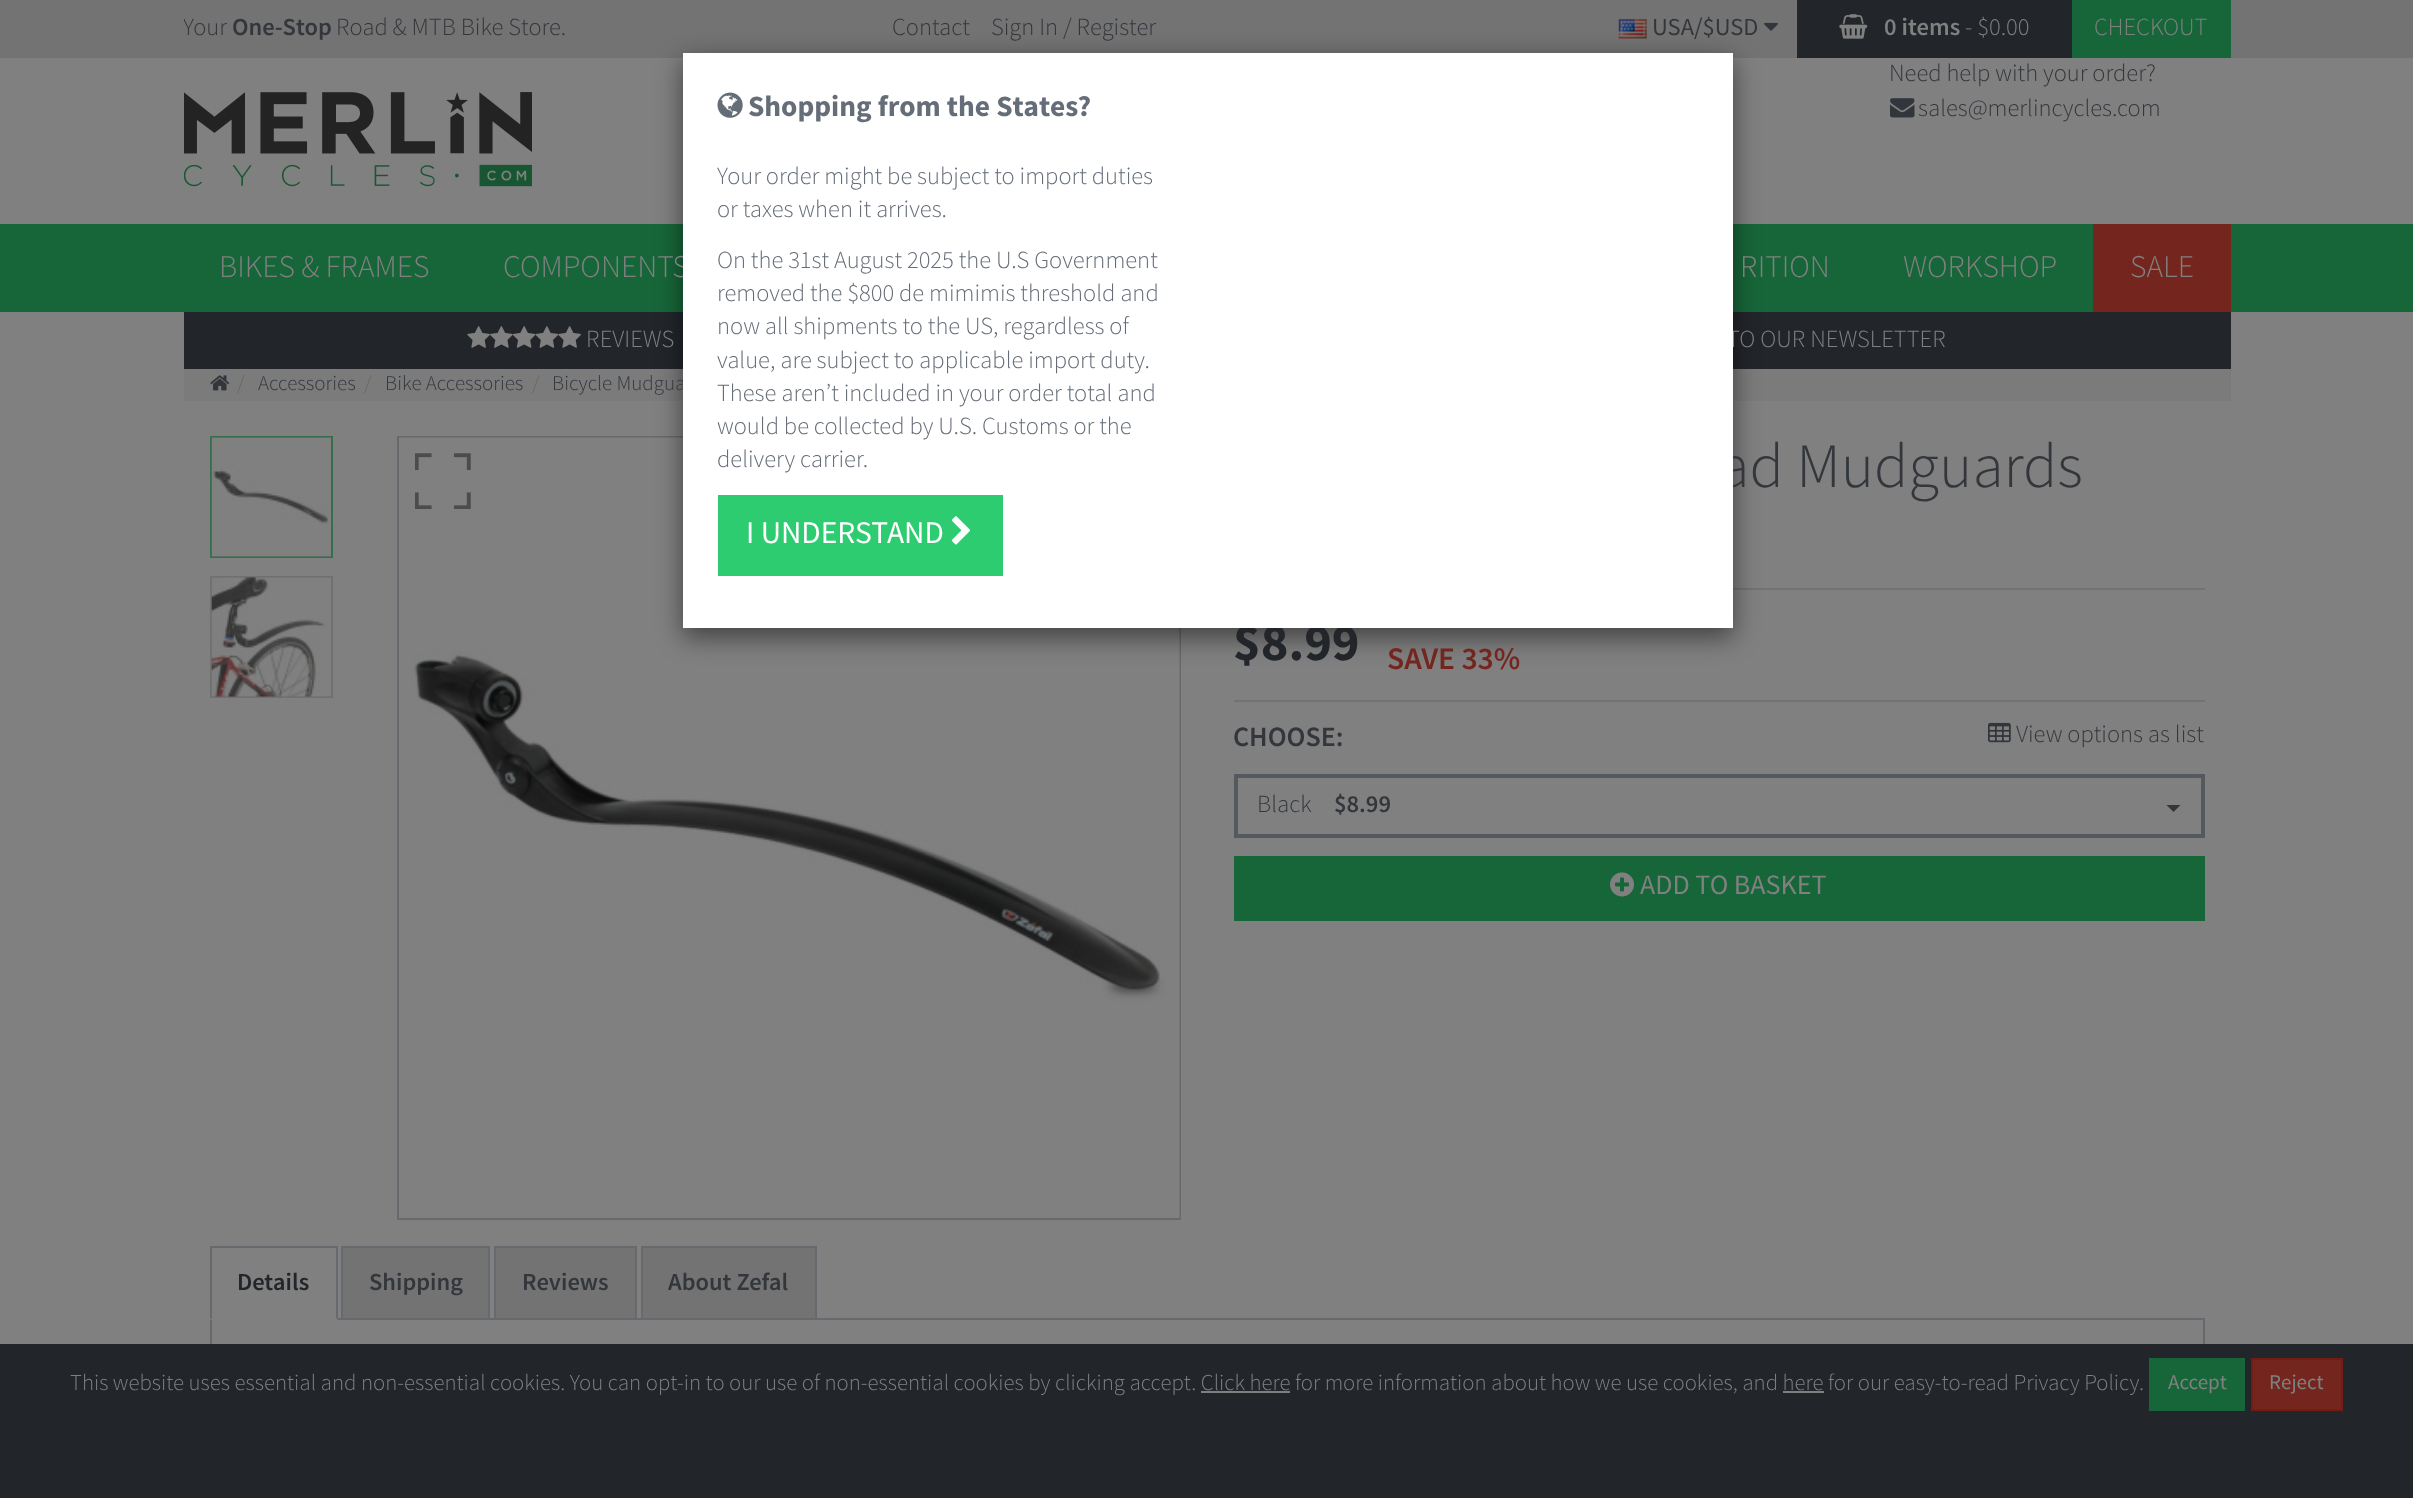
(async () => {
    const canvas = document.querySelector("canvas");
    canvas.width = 2413;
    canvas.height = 1498;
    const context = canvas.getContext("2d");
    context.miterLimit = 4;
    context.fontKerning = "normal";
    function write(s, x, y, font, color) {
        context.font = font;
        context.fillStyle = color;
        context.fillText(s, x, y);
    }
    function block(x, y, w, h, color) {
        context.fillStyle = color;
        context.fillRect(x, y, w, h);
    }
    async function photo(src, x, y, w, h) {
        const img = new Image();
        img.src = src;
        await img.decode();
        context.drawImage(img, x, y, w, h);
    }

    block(0, 0, 2413, 1498, "rgb(128, 128, 128)");
    block(0, 0, 2413, 58, "rgb(115, 115, 115)");
    context.save();
    context.beginPath();
    context.rect(184, 0, 682, 58);
    context.clip();
    write("Your", 183, 35, "300 24.5px Source Sans Pro", "rgb(51, 55, 60)");
    context.restore();
    write("One-Stop", 232, 35, "600 24.5px Source Sans Pro", "rgb(51, 55, 60)");
    write("Road & MTB Bike Store.", 336, 35, "300 24.5px Source Sans Pro", "rgb(51, 55, 60)");
    write("Contact", 892, 35, "300 24.5px Source Sans Pro", "rgb(51, 55, 60)");
    write("Sign In / Register", 991, 35, "300 24.5px Source Sans Pro", "rgb(51, 55, 60)");
    await photo("media/1.png", 1618, 19, 29, 20);
    write("USA/$USD", 1652, 35, "24.5px Source Sans Pro", "rgb(51, 55, 60)");
    await photo("media/2.png", 1764, 22, 14, 9);
    block(1797, 0, 275, 58, "rgb(34, 37, 42)");
    await photo("media/3.png", 1839, 14, 29, 25);
    write("0 items", 1884, 35, "600 24.5px Source Sans Pro", "rgb(128, 128, 128)");
    write("- $0.00", 1965, 35, "300 24.5px Source Sans Pro", "rgb(128, 128, 128)");
    block(2072, 0, 159, 58, "rgb(23, 102, 57)");
    write("CHECKOUT", 2094, 35, "300 24.5px Source Sans Pro", "rgb(128, 128, 128)");
    block(0, 224, 2413, 88, "rgb(23, 102, 57)");
    block(184, 312, 2047, 57, "rgb(34, 37, 42)");
    block(184, 369, 2047, 32, "rgb(123, 123, 123)");
    context.strokeStyle = "rgb(102, 105, 109)";
    context.lineWidth = 2;
    context.strokeRect(398, 437, 782, 782);
    await photo("media/16.png", 399, 437, 781, 781);
    block(1733, 588, 472, 2, "rgb(115, 115, 115)");
    context.fillStyle = "rgba(0, 0, 0, 0.5)";
    context.filter = "blur(13px)";
    context.beginPath();
    context.rect(683, 61, 1050, 576);
    context.fill();
    context.filter = "none";
    write("COMPONENTS", 503, 277, "300 31.5px Source Sans Pro", "rgb(128, 128, 128)");
    write("TO OUR NEWSLETTER", 1727, 347, "300 24.5px Source Sans Pro", "rgb(128, 128, 128)");
    write("Bicycle Mudgua", 552, 390, "300 21px Source Sans Pro", "rgb(51, 55, 60)");
    write("ad Mudguards", 1718, 487, "300 63px Source Sans Pro", "rgb(51, 55, 60)");
    write("$8.99", 1233, 660, "bold 52.5px Source Sans Pro", "rgb(34, 37, 42)");
    block(683, 53, 1050, 575, "rgb(255, 255, 255)");
    await photo("media/4.png", 717, 92, 26, 26);
    write("Shopping from the States?", 748, 116, "bold 29.4px Source Sans Pro", "rgb(101, 109, 120)");
    write("Your order might be subject to import duties", 717, 184, "300 24.5px Source Sans Pro", "rgb(101, 109, 120)");
    write("or taxes when it arrives.", 717, 217, "300 24.5px Source Sans Pro", "rgb(101, 109, 120)");
    write("On the 31st August 2025 the U.S Government", 717, 268, "300 24.5px Source Sans Pro", "rgb(101, 109, 120)");
    write("removed the $800 de mimimis threshold and", 717, 301, "300 24.5px Source Sans Pro", "rgb(101, 109, 120)");
    write("now all shipments to the US, regardless of", 717, 334, "300 24.5px Source Sans Pro", "rgb(101, 109, 120)");
    write("value, are subject to applicable import duty.", 717, 368, "300 24.5px Source Sans Pro", "rgb(101, 109, 120)");
    write("These aren’t included in your order total and", 717, 401, "300 24.5px Source Sans Pro", "rgb(101, 109, 120)");
    write("would be collected by U.S. Customs or the", 717, 434, "300 24.5px Source Sans Pro", "rgb(101, 109, 120)");
    write("delivery carrier.", 717, 467, "300 24.5px Source Sans Pro", "rgb(101, 109, 120)");
    block(718, 495, 285, 81, "rgb(46, 204, 113)");
    write("I UNDERSTAND", 746, 543, "31.5px Source Sans Pro", "rgb(255, 255, 255)");
    await photo("media/5.png", 951, 516, 19, 29);
    write("Need help with your order?", 1889, 81, "300 24.5px Source Sans Pro", "rgb(51, 55, 60)");
    await photo("media/6.png", 184, 92, 348, 95);
    await photo("media/7.png", 1890, 98, 25, 20);
    write("sales@merlincycles.com", 1918, 116, "300 24.5px Source Sans Pro", "rgb(51, 55, 60)");
    write("BIKES & FRAMES", 219, 277, "300 31.5px Source Sans Pro", "rgb(128, 128, 128)");
    write("RITION", 1740, 277, "300 31.5px Source Sans Pro", "rgb(128, 128, 128)");
    write("WORKSHOP", 1903, 277, "300 31.5px Source Sans Pro", "rgb(128, 128, 128)");
    block(2093, 224, 138, 88, "rgb(116, 38, 30)");
    write("SALE", 2130, 277, "300 31.5px Source Sans Pro", "rgb(128, 128, 128)");
    await photo("media/8.png", 467, 326, 23, 22);
    await photo("media/9.png", 490, 326, 23, 22);
    await photo("media/10.png", 512, 326, 24, 22);
    await photo("media/11.png", 535, 326, 24, 22);
    await photo("media/12.png", 558, 326, 23, 22);
    write("REVIEWS", 586, 347, "300 24.5px Source Sans Pro", "rgb(128, 128, 128)");
    await photo("media/13.png", 210, 375, 20, 16);
    write("/", 237, 390, "300 21px Source Sans Pro", "rgb(102, 102, 102)");
    write("Accessories", 258, 390, "300 21px Source Sans Pro", "rgb(51, 55, 60)");
    write("/", 364, 390, "300 21px Source Sans Pro", "rgb(102, 102, 102)");
    write("Bike Accessories", 385, 390, "300 21px Source Sans Pro", "rgb(51, 55, 60)");
    write("/", 532, 390, "300 21px Source Sans Pro", "rgb(102, 102, 102)");
    context.strokeStyle = "rgb(55, 110, 78)";
    context.strokeRect(211, 437, 121, 120);
    await photo("media/14.png", 211, 437, 120, 120);
    context.strokeStyle = "rgb(110, 112, 114)";
    context.strokeRect(211, 577, 121, 120);
    await photo("media/15.png", 211, 577, 120, 120);
    await photo("media/17.png", 415, 453, 56, 56);
    block(1234, 700, 971, 2, "rgb(115, 115, 115)");
    write(".", 1434, 634, "31.5px Source Sans Pro", "rgb(85, 89, 95)");
    write("SAVE 33%", 1387, 669, "600 31.5px Source Sans Pro", "rgb(116, 38, 30)");
    write("CHOOSE:", 1233, 746, "600 28px Source Sans Pro", "rgb(51, 55, 60)");
    await photo("media/18.png", 1988, 722, 23, 21);
    write("View options as list", 2016, 742, "300 24.5px Source Sans Pro", "rgb(51, 55, 60)");
    context.strokeStyle = "rgb(85, 89, 95)";
    context.lineWidth = 4;
    context.strokeRect(1236, 776, 967, 60);
    write("Black", 1257, 812, "300 24.5px Source Sans Pro", "rgb(51, 55, 60)");
    write("$8.99", 1334, 812, "600 24.5px Source Sans Pro", "rgb(51, 55, 60)");
    context.beginPath();
    context.moveTo(2166.5, 805);
    context.lineTo(2180.5, 805);
    context.lineTo(2173.5, 812);
    context.closePath();
    context.fill();
    block(1234, 856, 971, 65, "rgb(23, 102, 57)");
    await photo("media/19.png", 1610, 872, 24, 25);
    write("ADD TO BASKET", 1640, 894, "28px Source Sans Pro", "rgb(128, 128, 128)");
    block(338, 1318, 1867, 2, "rgb(102, 105, 109)");
    block(210, 1246, 128, 2, "rgb(102, 105, 109)");
    context.beginPath();
    context.moveTo(338, 1246);
    context.lineTo(338, 1320);
    context.lineTo(336, 1318);
    context.lineTo(336, 1248);
    context.closePath();
    context.fill();
    context.beginPath();
    context.moveTo(210, 1320);
    context.lineTo(210, 1246);
    context.lineTo(212, 1248);
    context.lineTo(212, 1318);
    context.closePath();
    context.fill();
    write("Details", 237, 1290, "600 24.5px Source Sans Pro", "rgb(34, 37, 42)");
    context.fillStyle = "rgb(115, 115, 115)";
    context.beginPath();
    context.rect(342, 1247, 147, 72);
    context.fill();
    context.strokeStyle = "rgb(102, 105, 109)";
    context.lineWidth = 2;
    context.stroke();
    write("Shipping", 369, 1290, "600 24.5px Source Sans Pro", "rgb(51, 55, 60)");
    context.fillStyle = "rgb(115, 115, 115)";
    context.beginPath();
    context.rect(495, 1247, 141, 72);
    context.fill();
    context.stroke();
    write("Reviews", 522, 1290, "600 24.5px Source Sans Pro", "rgb(51, 55, 60)");
    context.fillStyle = "rgb(115, 115, 115)";
    context.beginPath();
    context.rect(642, 1247, 174, 72);
    context.fill();
    context.stroke();
    write("About Zefal", 668, 1290, "600 24.5px Source Sans Pro", "rgb(51, 55, 60)");
    block(2203, 1320, 2, 24, "rgb(102, 105, 109)");
    block(210, 1320, 2, 24, "rgb(102, 105, 109)");
    block(0, 1344, 2413, 154, "rgb(34, 37, 42)");
    write("This website uses essential and non-essential cookies. You can opt-in to our use of non-essential cookies by clicking accept. Click here for more information about how we use cookies, and here for our easy-to-read Privacy Policy.", 70, 1390, "300 22.75px Source Sans Pro", "rgb(128, 128, 128)");
    block(2149, 1358, 96, 53, "rgb(23, 102, 57)");
    write("Accept", 2168, 1389, "21px Source Sans Pro", "rgb(128, 128, 128)");
    context.fillStyle = "rgb(116, 38, 30)";
    context.beginPath();
    context.rect(2252, 1359, 90, 51);
    context.fill();
    context.strokeStyle = "rgb(114, 28, 19)";
    context.stroke();
    write("Reject", 2269, 1389, "21px Source Sans Pro", "rgb(128, 128, 128)");
    block(1201, 1391, 89, 2, "rgb(128, 128, 128)");
    block(1783, 1391, 41, 2, "rgb(128, 128, 128)");
})();
